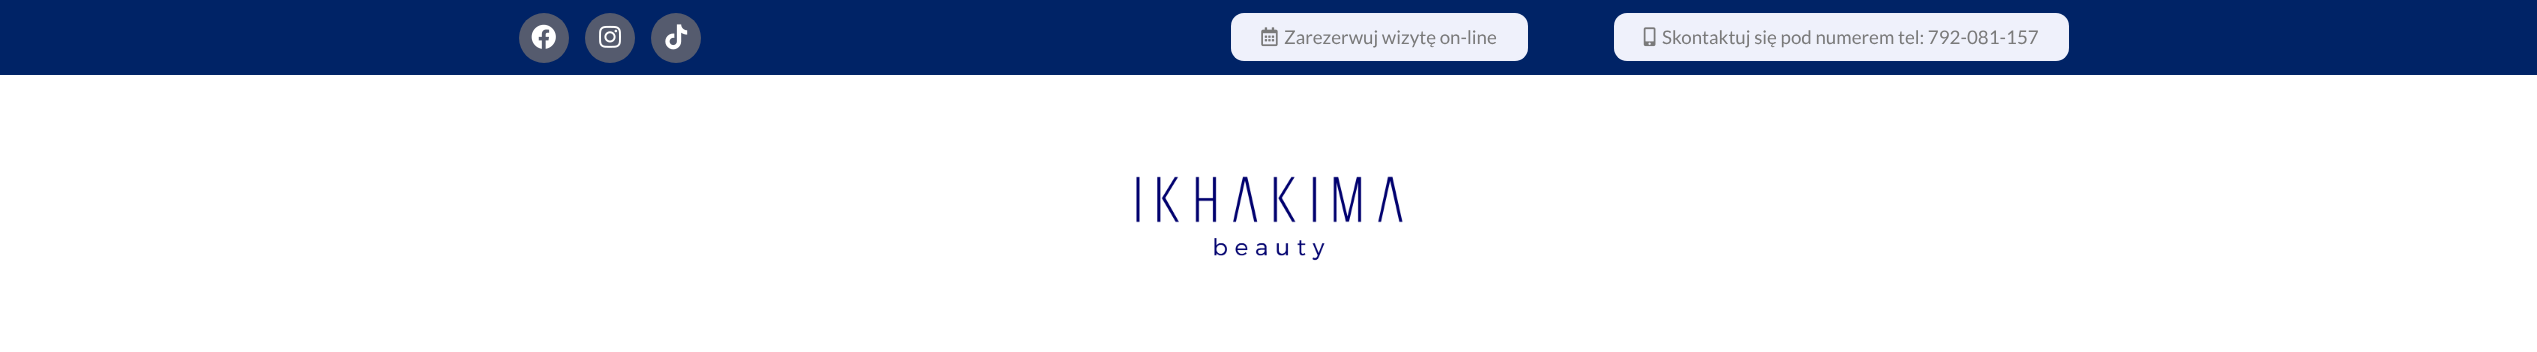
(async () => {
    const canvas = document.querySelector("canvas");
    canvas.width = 2537;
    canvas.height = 352;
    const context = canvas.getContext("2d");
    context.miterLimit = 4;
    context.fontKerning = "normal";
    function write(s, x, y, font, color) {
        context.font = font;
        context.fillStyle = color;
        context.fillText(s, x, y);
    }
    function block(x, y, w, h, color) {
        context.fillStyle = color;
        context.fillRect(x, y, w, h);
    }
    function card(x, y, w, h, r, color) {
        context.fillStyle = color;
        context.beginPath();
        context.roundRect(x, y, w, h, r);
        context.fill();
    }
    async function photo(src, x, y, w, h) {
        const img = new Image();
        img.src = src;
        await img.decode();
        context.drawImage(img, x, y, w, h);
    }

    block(0, 0, 2537, 352, "rgb(255, 255, 255)");
    block(0, 0, 2537, 75, "rgb(0, 35, 102)");
    context.fillStyle = "rgb(85, 91, 110)";
    context.beginPath();
    context.arc(544, 38, 25, 0, Math.PI * 2);
    context.fill();
    await photo("media/1.png", 531, 24, 25, 25);
    context.beginPath();
    context.arc(610, 38, 25, 0, Math.PI * 2);
    context.fill();
    await photo("media/2.png", 599, 25, 22, 23);
    context.beginPath();
    context.arc(676, 38, 25, 0, Math.PI * 2);
    context.fill();
    await photo("media/3.png", 665, 24, 23, 26);
    card(1231, 13, 297, 48, 13, "rgb(239, 241, 251)");
    await photo("media/4.png", 1261, 27, 17, 20);
    write("Zarezerwuj wizytę on-line", 1284, 44, "18.75px Lato", "rgb(122, 122, 122)");
    card(1614, 13, 455, 48, 13, "rgb(239, 241, 251)");
    await photo("media/5.png", 1643, 27, 13, 20);
    write("Skontaktuj się pod numerem tel: 792-081-157", 1662, 44, "18.75px Lato", "rgb(122, 122, 122)");
    await photo("media/6.png", 1136, 176, 267, 85);
})();
